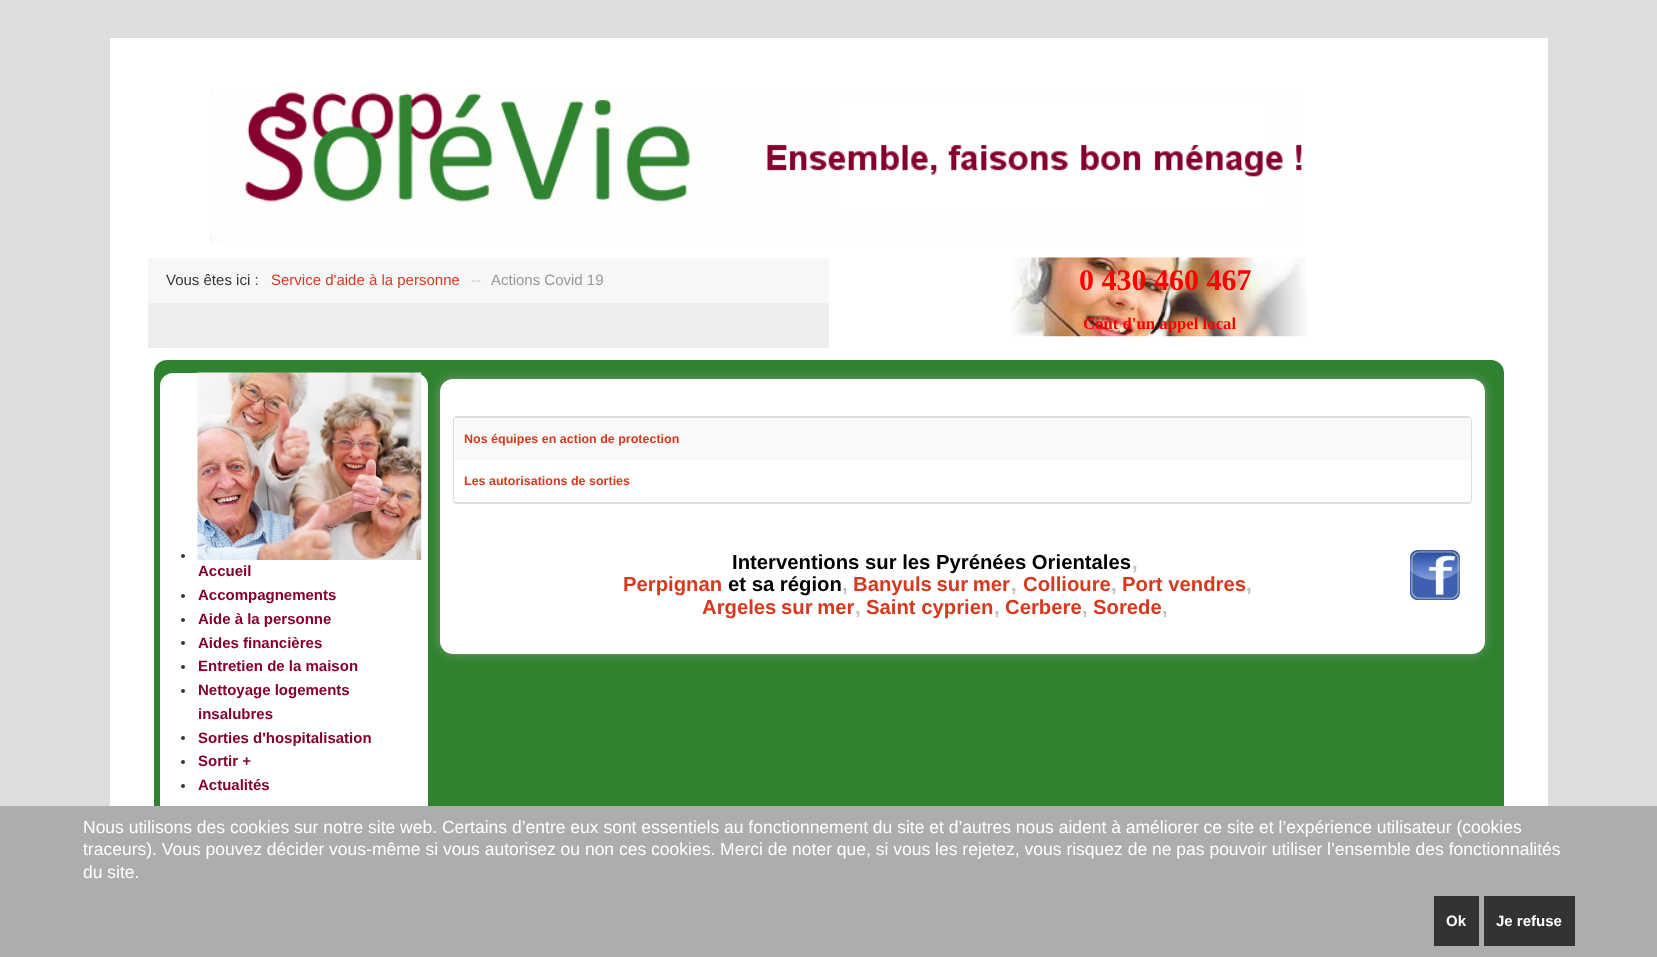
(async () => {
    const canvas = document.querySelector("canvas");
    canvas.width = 1657;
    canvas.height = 957;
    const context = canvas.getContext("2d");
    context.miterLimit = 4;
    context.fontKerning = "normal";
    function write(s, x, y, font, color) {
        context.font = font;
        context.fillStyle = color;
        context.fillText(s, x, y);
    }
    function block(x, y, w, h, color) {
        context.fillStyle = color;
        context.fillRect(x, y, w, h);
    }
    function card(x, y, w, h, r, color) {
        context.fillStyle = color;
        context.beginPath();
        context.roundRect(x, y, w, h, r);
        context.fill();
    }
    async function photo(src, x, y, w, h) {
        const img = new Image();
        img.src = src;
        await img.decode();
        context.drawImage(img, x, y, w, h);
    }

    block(0, 0, 1657, 957, "rgb(222, 220, 222)");
    block(110, 38, 1438, 768, "rgb(255, 255, 255)");
    await photo("media/1.png", 210, 88, 1092, 156);
    block(148, 303, 681, 45, "rgb(239, 238, 239)");
    block(148, 258, 681, 45, "rgb(247, 247, 247)");
    write("Vous êtes ici :", 166, 285, "15px Liberation Sans", "rgb(54, 54, 54)");
    write("Service d'aide à la personne", 271, 285, "15px Liberation Sans", "rgb(215, 57, 31)");
    write("--", 471, 285, "15px Liberation Sans", "rgb(204, 204, 204)");
    write("Actions Covid 19", 491, 285, "15px Liberation Sans", "rgb(153, 153, 153)");
    await photo("media/2.png", 1010, 257, 297, 80);
    write("0 430 460 467", 1079, 290, "bold 30px Liberation Serif", "rgb(255, 0, 0)");
    write("Coût d'un appel local", 1083, 329, "bold 16.75px Liberation Serif", "rgb(255, 0, 0)");
    card(154, 360, 1350, 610, 13, "rgb(47, 130, 47)");
    card(160, 373, 268, 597, 13, "rgb(255, 255, 255)");
    card(198, 373, 223, 211, 6, "rgb(255, 255, 255)");
    await photo("media/4.png", 197, 372, 225, 188);
    context.fillStyle = "rgba(179, 178, 175, 0.5)";
    context.filter = "blur(6px)";
    context.beginPath();
    context.roundRect(440, 379, 1045, 275, 13);
    context.fill();
    context.filter = "none";
    card(440, 379, 1045, 275, 13, "rgb(255, 255, 255)");
    context.fillStyle = "rgb(221, 221, 221)";
    context.beginPath();
    context.moveTo(458, 416);
    context.lineTo(1468, 416);
    context.bezierCurveTo(1470, 416, 1472, 418, 1472, 421);
    context.lineTo(1472, 499);
    context.bezierCurveTo(1472, 502, 1470, 504, 1468, 504);
    context.lineTo(458, 504);
    context.bezierCurveTo(455, 504, 452, 502, 452, 499);
    context.lineTo(452, 421);
    context.bezierCurveTo(452, 418, 455, 416, 458, 416);
    context.closePath();
    context.moveTo(458, 418);
    context.lineTo(1468, 418);
    context.bezierCurveTo(1470, 418, 1471, 419, 1471, 421);
    context.lineTo(1471, 499);
    context.bezierCurveTo(1471, 501, 1470, 502, 1468, 502);
    context.lineTo(458, 502);
    context.bezierCurveTo(455, 502, 452, 501, 452, 499);
    context.lineTo(452, 421);
    context.bezierCurveTo(452, 419, 455, 418, 458, 418);
    context.closePath();
    context.fill("evenodd");
    block(454, 418, 1017, 42, "rgb(249, 249, 249)");
    block(453, 418, 1, 82, "rgb(221, 221, 221)");
    write("Nos équipes en action de protection", 464, 443, "bold 12.5px Liberation Sans", "rgb(215, 57, 31)");
    write("Les autorisations de sorties", 464, 485, "bold 12.5px Liberation Sans", "rgb(215, 57, 31)");
    write("Interventions sur les Pyrénées Orientales", 732, 569, "bold 20.3px Liberation Sans", "rgb(0, 0, 0)");
    write(",", 1132, 569, "bold 20.3px Liberation Sans", "rgb(192, 192, 192)");
    await photo("media/3.png", 1410, 550, 50, 50);
    write("Perpignan", 623, 591, "bold 20.3px Liberation Sans", "rgb(215, 57, 31)");
    write("et sa région", 728, 591, "bold 20.3px Liberation Sans", "rgb(0, 0, 0)");
    write(",", 842, 591, "bold 20.3px Liberation Sans", "rgb(192, 192, 192)");
    context.wordSpacing = "-1px";
    write("Banyuls sur mer", 853, 591, "bold 20.3px Liberation Sans", "rgb(215, 57, 31)");
    context.wordSpacing = "0px";
    write(",", 1011, 591, "bold 20.3px Liberation Sans", "rgb(192, 192, 192)");
    write("Collioure", 1023, 591, "bold 20.3px Liberation Sans", "rgb(215, 57, 31)");
    write(",", 1111, 591, "bold 20.3px Liberation Sans", "rgb(192, 192, 192)");
    write("Port vendres", 1122, 591, "bold 20.3px Liberation Sans", "rgb(215, 57, 31)");
    write(",", 1246, 591, "bold 20.3px Liberation Sans", "rgb(192, 192, 192)");
    context.wordSpacing = "-1px";
    write("Argeles sur mer", 702, 614, "bold 20.3px Liberation Sans", "rgb(215, 57, 31)");
    context.wordSpacing = "0px";
    write(",", 855, 614, "bold 20.3px Liberation Sans", "rgb(192, 192, 192)");
    write("Saint cyprien", 866, 614, "bold 20.3px Liberation Sans", "rgb(215, 57, 31)");
    write(",", 994, 614, "bold 20.3px Liberation Sans", "rgb(192, 192, 192)");
    write("Cerbere", 1005, 614, "bold 20.3px Liberation Sans", "rgb(215, 57, 31)");
    write(",", 1082, 614, "bold 20.3px Liberation Sans", "rgb(192, 192, 192)");
    write("Sorede", 1093, 614, "bold 20.3px Liberation Sans", "rgb(215, 57, 31)");
    write(",", 1162, 614, "bold 20.3px Liberation Sans", "rgb(192, 192, 192)");
    context.fillStyle = "rgb(54, 54, 54)";
    context.beginPath();
    context.arc(183, 556, 2, 0, Math.PI * 2);
    context.fill();
    write("Accueil", 198, 576, "bold 15px Liberation Sans", "rgb(133, 0, 44)");
    context.fillStyle = "rgb(54, 54, 54)";
    context.beginPath();
    context.arc(183, 596, 2, 0, Math.PI * 2);
    context.fill();
    write("Accompagnements", 198, 600, "bold 15px Liberation Sans", "rgb(133, 0, 44)");
    context.fillStyle = "rgb(54, 54, 54)";
    context.beginPath();
    context.arc(183, 620, 2, 0, Math.PI * 2);
    context.fill();
    write("Aide à la personne", 198, 624, "bold 15px Liberation Sans", "rgb(133, 0, 44)");
    context.fillStyle = "rgb(54, 54, 54)";
    context.beginPath();
    context.arc(183, 643, 2, 0, Math.PI * 2);
    context.fill();
    write("Aides financières", 198, 648, "bold 15px Liberation Sans", "rgb(133, 0, 44)");
    context.fillStyle = "rgb(54, 54, 54)";
    context.beginPath();
    context.arc(183, 667, 2, 0, Math.PI * 2);
    context.fill();
    write("Entretien de la maison", 198, 671, "bold 15px Liberation Sans", "rgb(133, 0, 44)");
    context.fillStyle = "rgb(54, 54, 54)";
    context.beginPath();
    context.arc(183, 691, 2, 0, Math.PI * 2);
    context.fill();
    write("Nettoyage logements", 198, 695, "bold 15px Liberation Sans", "rgb(133, 0, 44)");
    write("insalubres", 198, 719, "bold 15px Liberation Sans", "rgb(133, 0, 44)");
    context.fillStyle = "rgb(54, 54, 54)";
    context.beginPath();
    context.arc(183, 738, 2, 0, Math.PI * 2);
    context.fill();
    write("Sorties d'hospitalisation", 198, 743, "bold 15px Liberation Sans", "rgb(133, 0, 44)");
    context.fillStyle = "rgb(54, 54, 54)";
    context.beginPath();
    context.arc(183, 762, 2, 0, Math.PI * 2);
    context.fill();
    write("Sortir +", 198, 766, "bold 15px Liberation Sans", "rgb(133, 0, 44)");
    context.fillStyle = "rgb(54, 54, 54)";
    context.beginPath();
    context.arc(183, 786, 2, 0, Math.PI * 2);
    context.fill();
    write("Actualités", 198, 790, "bold 15px Liberation Sans", "rgb(133, 0, 44)");
    block(0, 806, 1657, 151, "rgb(173, 173, 173)");
    write("Nous utilisons des cookies sur notre site web. Certains d’entre eux sont essentiels au fonctionnement du site et d’autres nous aident à améliorer ce site et l’expérience utilisateur (cookies", 83, 833, "17.5px Liberation Sans", "rgb(255, 255, 255)");
    write("traceurs). Vous pouvez décider vous-même si vous autorisez ou non ces cookies. Merci de noter que, si vous les rejetez, vous risquez de ne pas pouvoir utiliser l’ensemble des fonctionnalités", 83, 855, "17.5px Liberation Sans", "rgb(255, 255, 255)");
    write("du site.", 83, 878, "17.5px Liberation Sans", "rgb(255, 255, 255)");
    block(1434, 896, 45, 50, "rgb(51, 51, 51)");
    write("Ok", 1446, 926, "bold 15px Liberation Sans", "rgb(255, 255, 255)");
    block(1484, 896, 91, 50, "rgb(51, 51, 51)");
    write("Je refuse", 1496, 926, "bold 15px Liberation Sans", "rgb(255, 255, 255)");
})();
